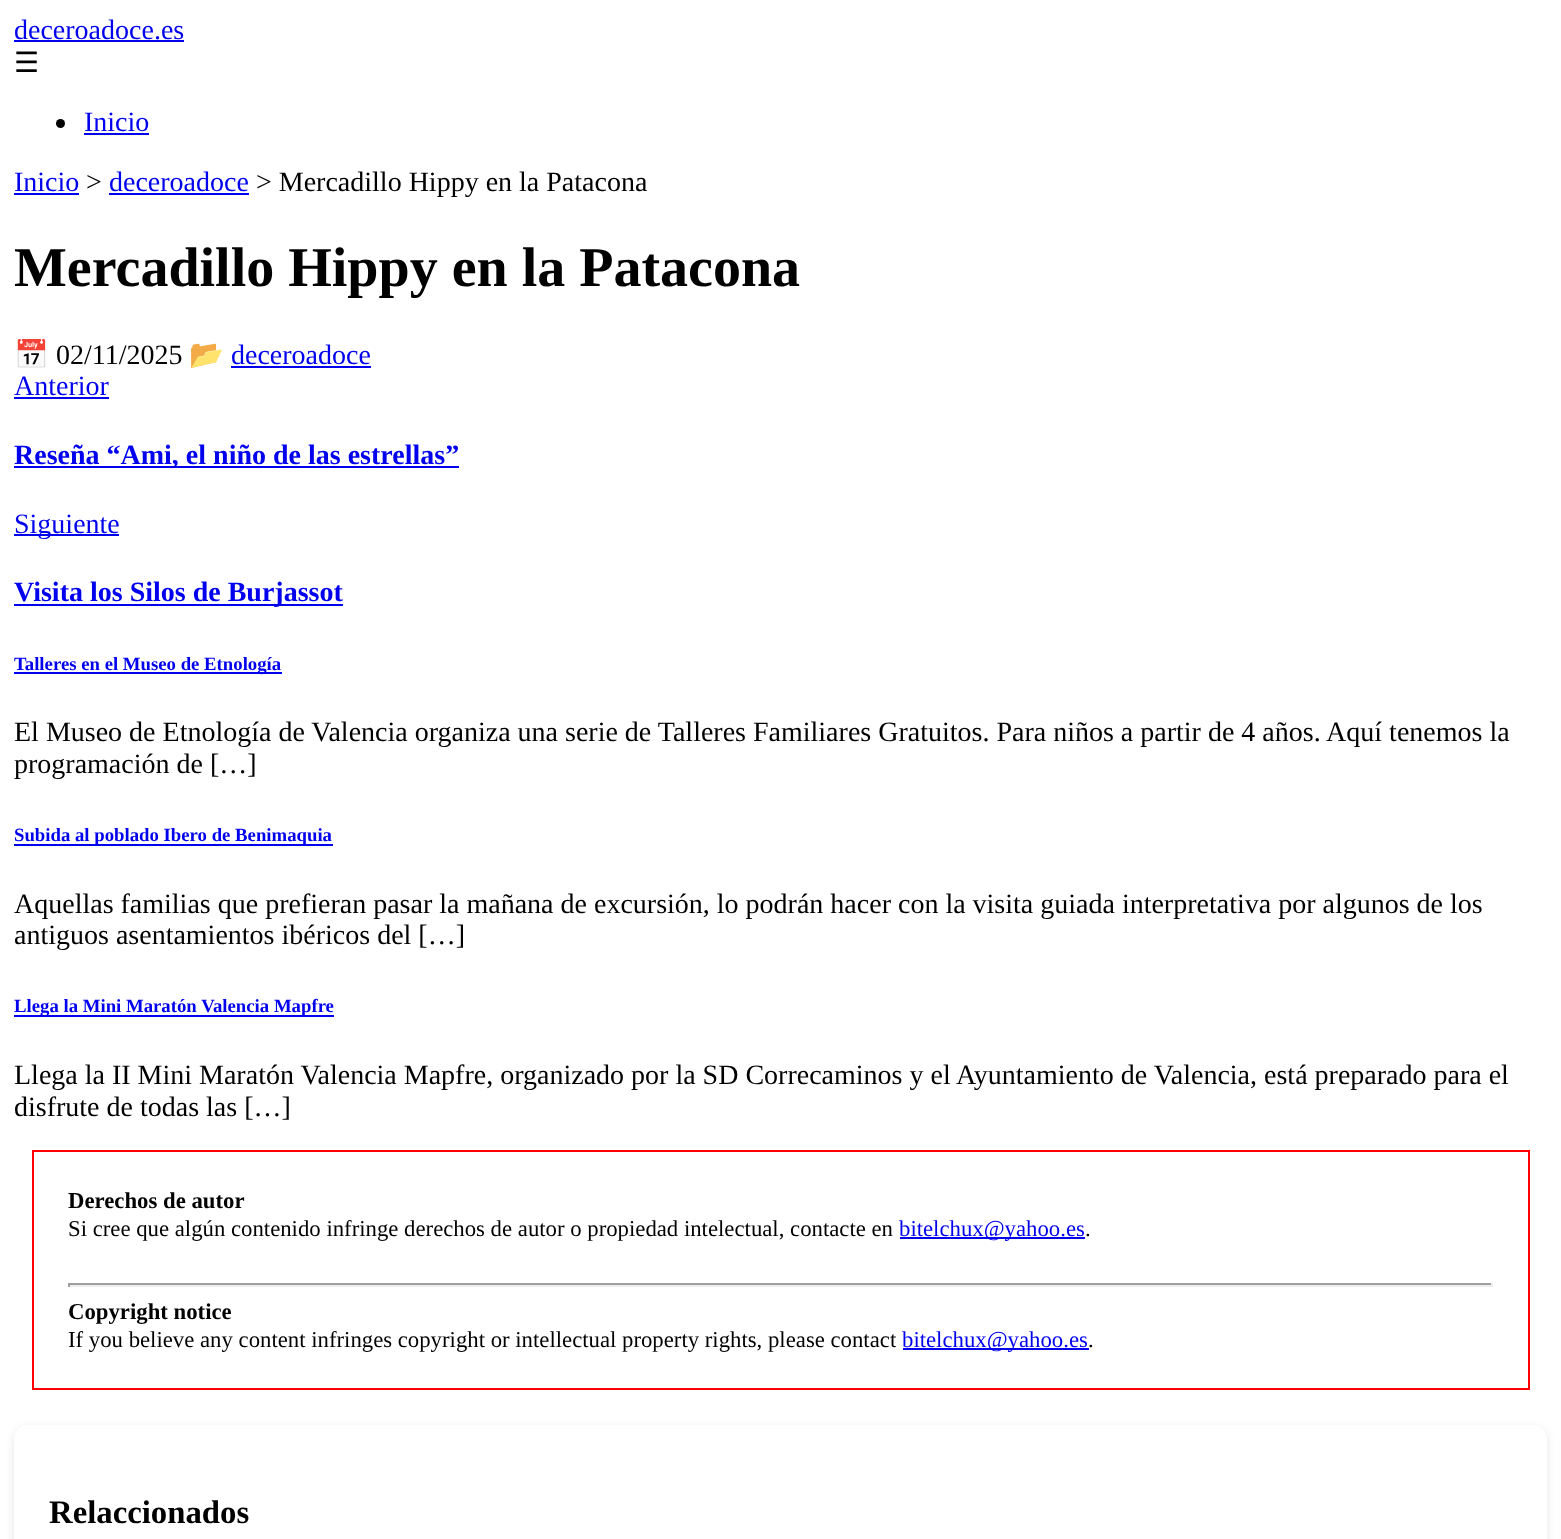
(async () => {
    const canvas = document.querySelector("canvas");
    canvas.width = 1561;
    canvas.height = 1539;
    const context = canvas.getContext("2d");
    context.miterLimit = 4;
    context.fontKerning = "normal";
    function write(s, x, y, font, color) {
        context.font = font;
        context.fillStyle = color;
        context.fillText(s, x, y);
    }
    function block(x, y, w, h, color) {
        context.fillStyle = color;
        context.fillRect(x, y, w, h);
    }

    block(0, 0, 1561, 1539, "rgb(255, 255, 255)");
    write("deceroadoce.es", 14, 39, "28px Liberation Serif", "rgb(0, 0, 238)");
    block(14, 40, 170, 2, "rgb(0, 0, 238)");
    write("☰", 14, 72, "28px DejaVu Sans", "rgb(0, 0, 0)");
    context.beginPath();
    context.arc(60.5, 123.5, 4.5, 0, Math.PI * 2);
    context.fill();
    write("Inicio", 84, 131, "28px Liberation Serif", "rgb(0, 0, 238)");
    block(84, 133, 65, 2, "rgb(0, 0, 238)");
    write("Inicio", 14, 191, "28px Liberation Serif", "rgb(0, 0, 238)");
    block(14, 193, 65, 2, "rgb(0, 0, 238)");
    write(">", 86, 191, "28px Liberation Serif", "rgb(0, 0, 0)");
    write("deceroadoce", 109, 191, "28px Liberation Serif", "rgb(0, 0, 238)");
    block(109, 193, 140, 2, "rgb(0, 0, 238)");
    write("> Mercadillo Hippy en la Patacona", 256, 191, "28px Liberation Serif", "rgb(0, 0, 0)");
    write("Mercadillo Hippy en la Patacona", 14, 286, "bold 56px Liberation Serif", "rgb(0, 0, 0)");
    write("📅", 14, 364, "28px Noto Color Emoji", "rgb(0, 0, 0)");
    write("02/11/2025", 56, 364, "28px Liberation Serif", "rgb(0, 0, 0)");
    write("📂", 189, 364, "28px Noto Color Emoji", "rgb(0, 0, 0)");
    write("deceroadoce", 231, 364, "28px Liberation Serif", "rgb(0, 0, 238)");
    block(231, 366, 140, 2, "rgb(0, 0, 238)");
    write("Anterior", 14, 395, "28px Liberation Serif", "rgb(0, 0, 238)");
    block(14, 397, 95, 2, "rgb(0, 0, 238)");
    block(14, 466, 445, 2, "rgb(0, 0, 238)");
    write("Reseña “Ami, el niño de las estrellas”", 14, 464, "bold 28px Liberation Serif", "rgb(0, 0, 238)");
    block(14, 534, 105, 2, "rgb(0, 0, 238)");
    write("Siguiente", 14, 533, "28px Liberation Serif", "rgb(0, 0, 238)");
    block(14, 604, 329, 2, "rgb(0, 0, 238)");
    write("Visita los Silos de Burjassot", 14, 601, "bold 28px Liberation Serif", "rgb(0, 0, 238)");
    block(14, 672, 268, 2, "rgb(0, 0, 238)");
    write("Talleres en el Museo de Etnología", 14, 670, "bold 18.75px Liberation Serif", "rgb(0, 0, 238)");
    write("El Museo de Etnología de Valencia organiza una serie de Talleres Familiares Gratuitos. Para niños a partir de 4 años. Aquí tenemos la", 14, 741, "28px Liberation Serif", "rgb(0, 0, 0)");
    write("programación de […]", 14, 773, "28px Liberation Serif", "rgb(0, 0, 0)");
    block(14, 844, 319, 2, "rgb(0, 0, 238)");
    write("Subida al poblado Ibero de Benimaquia", 14, 841, "bold 18.75px Liberation Serif", "rgb(0, 0, 238)");
    write("Aquellas familias que prefieran pasar la mañana de excursión, lo podrán hacer con la visita guiada interpretativa por algunos de los", 14, 913, "28px Liberation Serif", "rgb(0, 0, 0)");
    write("antiguos asentamientos ibéricos del […]", 14, 944, "28px Liberation Serif", "rgb(0, 0, 0)");
    block(14, 1015, 320, 2, "rgb(0, 0, 238)");
    write("Llega la Mini Maratón Valencia Mapfre", 14, 1012, "bold 18.75px Liberation Serif", "rgb(0, 0, 238)");
    write("Llega la II Mini Maratón Valencia Mapfre, organizado por la SD Correcaminos y el Ayuntamiento de Valencia, está preparado para el", 14, 1084, "28px Liberation Serif", "rgb(0, 0, 0)");
    write("disfrute de todas las […]", 14, 1116, "28px Liberation Serif", "rgb(0, 0, 0)");
    context.strokeStyle = "rgb(255, 0, 0)";
    context.lineWidth = 2;
    context.strokeRect(33, 1151, 1496, 238);
    write("Derechos de autor", 68, 1208, "bold 22.75px Liberation Serif", "rgb(0, 0, 0)");
    write("Si cree que algún contenido infringe derechos de autor o propiedad intelectual, contacte en", 68, 1236, "22.75px Liberation Serif", "rgb(0, 0, 0)");
    block(900, 1237, 185, 2, "rgb(0, 0, 238)");
    write("bitelchux@yahoo.es", 899, 1236, "22.75px Liberation Serif", "rgb(0, 0, 238)");
    write(".", 1085, 1236, "22.75px Liberation Serif", "rgb(0, 0, 0)");
    block(68, 1283, 1425, 2, "rgb(159, 159, 159)");
    block(1491, 1283, 2, 4, "rgb(238, 238, 238)");
    block(68, 1285, 1425, 2, "rgb(238, 238, 238)");
    block(68, 1283, 2, 4, "rgb(159, 159, 159)");
    write("Copyright notice", 68, 1319, "bold 22.75px Liberation Serif", "rgb(0, 0, 0)");
    write("If you believe any content infringes copyright or intellectual property rights, please contact", 68, 1347, "22.75px Liberation Serif", "rgb(0, 0, 0)");
    block(903, 1348, 186, 2, "rgb(0, 0, 238)");
    write("bitelchux@yahoo.es", 902, 1347, "22.75px Liberation Serif", "rgb(0, 0, 238)");
    write(".", 1088, 1347, "22.75px Liberation Serif", "rgb(0, 0, 0)");
    context.save();
    context.beginPath();
    context.moveTo(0, 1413);
    context.lineTo(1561, 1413);
    context.lineTo(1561, 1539);
    context.lineTo(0, 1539);
    context.closePath();
    context.moveTo(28, 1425);
    context.lineTo(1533, 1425);
    context.bezierCurveTo(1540.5, 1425, 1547, 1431.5, 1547, 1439);
    context.lineTo(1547, 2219);
    context.bezierCurveTo(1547, 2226.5, 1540.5, 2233, 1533, 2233);
    context.lineTo(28, 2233);
    context.bezierCurveTo(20.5, 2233, 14, 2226.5, 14, 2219);
    context.lineTo(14, 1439);
    context.bezierCurveTo(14, 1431.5, 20.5, 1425, 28, 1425);
    context.closePath();
    context.clip("evenodd");
    context.fillStyle = "rgba(0, 0, 0, 0.1)";
    context.filter = "blur(4.5px)";
    context.beginPath();
    context.roundRect(14, 1428, 1533, 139, 14);
    context.fill();
    context.filter = "none";
    context.restore();
    write("Relaccionados", 49, 1523, "bold 32.75px Liberation Serif", "rgb(0, 0, 0)");
})();
